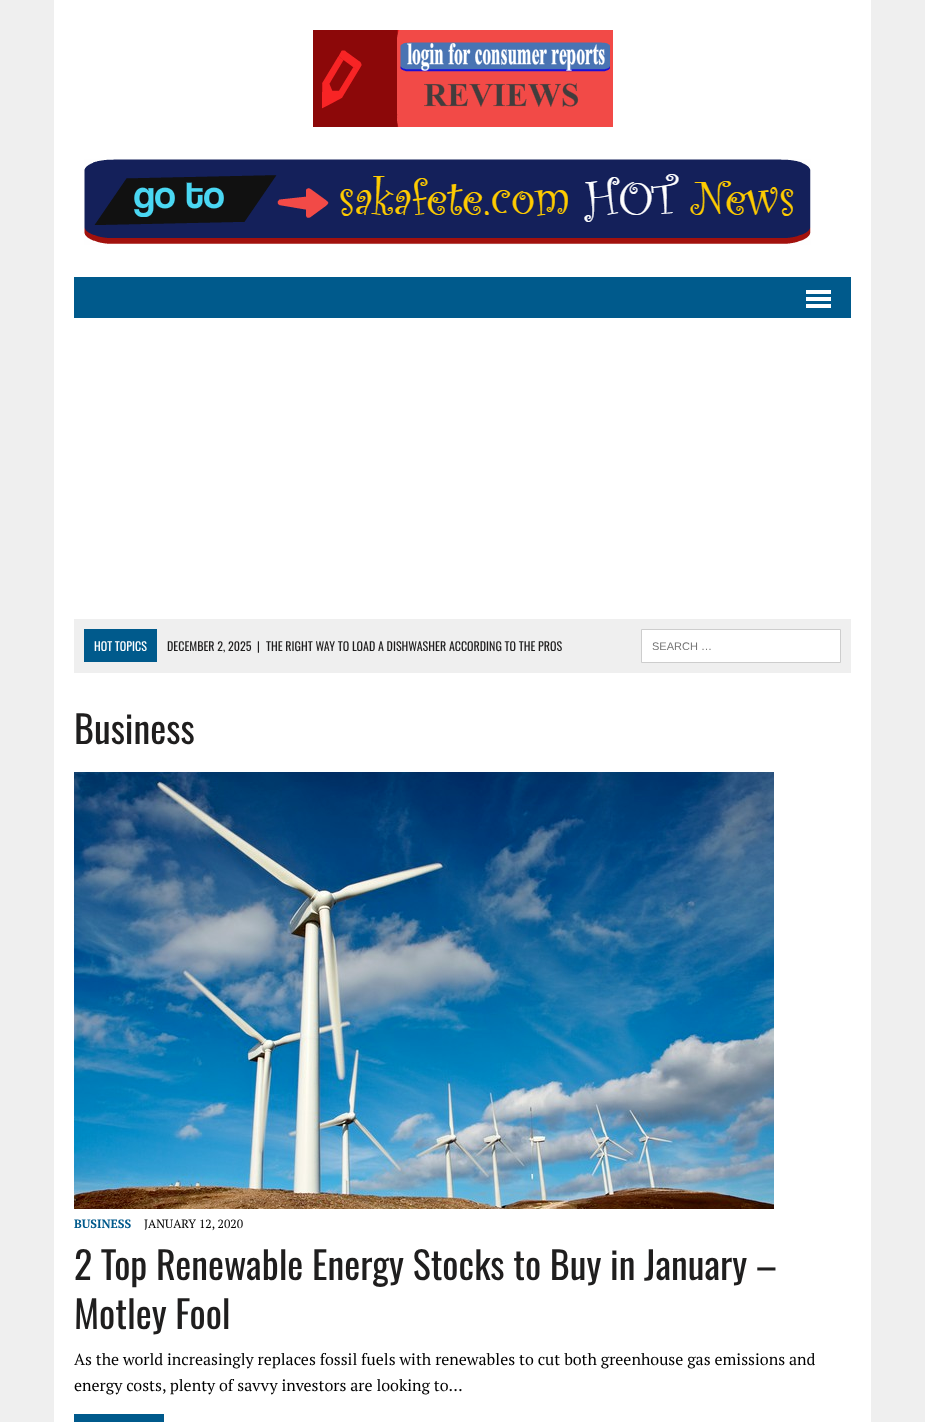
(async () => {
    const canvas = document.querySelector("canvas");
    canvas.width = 925;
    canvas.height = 1422;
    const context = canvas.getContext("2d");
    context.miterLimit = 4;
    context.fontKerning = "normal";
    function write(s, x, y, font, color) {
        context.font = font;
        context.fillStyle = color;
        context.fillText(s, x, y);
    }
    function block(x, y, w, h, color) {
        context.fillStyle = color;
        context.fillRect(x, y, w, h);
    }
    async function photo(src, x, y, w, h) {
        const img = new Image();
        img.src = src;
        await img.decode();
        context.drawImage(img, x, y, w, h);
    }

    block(0, 0, 925, 1422, "rgb(239, 239, 239)");
    block(54, 0, 817, 1422, "rgb(255, 255, 255)");
    await photo("media/1.png", 313, 30, 300, 97);
    await photo("media/2.png", 84, 159, 727, 86);
    block(74, 277, 777, 41, "rgb(0, 90, 140)");
    block(806, 290, 25, 4, "rgb(255, 255, 255)");
    block(806, 297, 25, 4, "rgb(255, 255, 255)");
    block(806, 304, 25, 4, "rgb(255, 255, 255)");
    block(74, 619, 777, 54, "rgb(239, 239, 239)");
    block(84, 629, 73, 33, "rgb(0, 90, 140)");
    write("HOT TOPICS", 94, 651, "12px Oswald", "rgb(255, 255, 255)");
    write("DECEMBER 2, 2025", 167, 651, "12px Oswald", "rgb(31, 30, 30)");
    write("|", 257, 651, "12px Oswald", "rgb(31, 30, 30)");
    write("THE RIGHT WAY TO LOAD A DISHWASHER ACCORDING TO THE PROS", 266, 651, "12px Oswald", "rgb(31, 30, 30)");
    context.fillStyle = "rgb(255, 255, 255)";
    context.beginPath();
    context.rect(641.5, 629.5, 199, 33);
    context.fill();
    context.strokeStyle = "rgb(205, 205, 205)";
    context.stroke();
    write("SEARCH …", 652, 650, "11px Liberation Sans", "rgb(117, 117, 117)");
    write("Business", 74, 744, "38px Oswald", "rgb(31, 30, 30)");
    await photo("media/3.png", 74, 772, 700, 437);
    write("BUSINESS", 74, 1228, "bold 12px PT Serif", "rgb(0, 90, 140)");
    write("JANUARY 12, 2020", 144, 1228, "12px PT Serif", "rgb(0, 0, 0)");
    write("2 Top Renewable Energy Stocks to Buy in January –", 74, 1280, "38px Oswald", "rgb(31, 30, 30)");
    write("Motley Fool", 74, 1329, "38px Oswald", "rgb(31, 30, 30)");
    write("As the world increasingly replaces fossil fuels with renewables to cut both greenhouse gas emissions and", 74, 1365, "16px PT Serif", "rgb(0, 0, 0)");
    write("energy costs, plenty of savvy investors are looking to…", 74, 1391, "16px PT Serif", "rgb(0, 0, 0)");
    block(74, 1414, 90, 8, "rgb(0, 90, 140)");
})();
